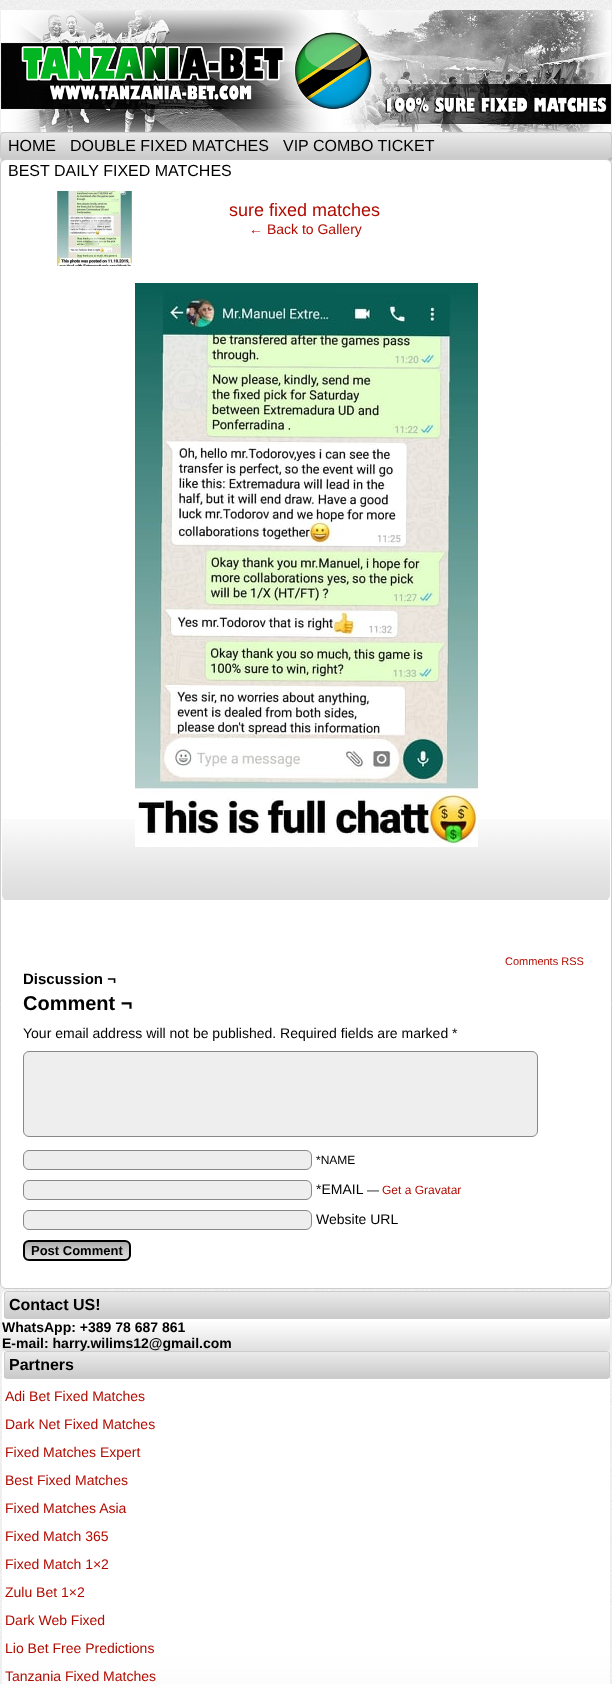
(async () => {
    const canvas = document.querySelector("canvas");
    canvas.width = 612;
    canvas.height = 1684;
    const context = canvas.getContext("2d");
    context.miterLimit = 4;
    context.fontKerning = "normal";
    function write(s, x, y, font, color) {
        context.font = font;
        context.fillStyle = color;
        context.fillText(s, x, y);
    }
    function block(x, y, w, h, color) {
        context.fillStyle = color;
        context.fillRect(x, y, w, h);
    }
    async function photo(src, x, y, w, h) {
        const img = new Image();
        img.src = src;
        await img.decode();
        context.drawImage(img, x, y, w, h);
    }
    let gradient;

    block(0, 0, 612, 1684, "rgb(255, 255, 255)");
    await photo("media/1.png", 0, 0, 612, 1684);
    context.fillStyle = "rgba(0, 0, 0, 0.2)";
    context.filter = "blur(2px)";
    context.beginPath();
    context.roundRect(2, 134, 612, 27, 4);
    context.fill();
    context.filter = "none";
    context.fillStyle = "rgba(20, 20, 20, 0.2)";
    context.filter = "blur(1.5px)";
    context.beginPath();
    context.roundRect(1, 133, 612, 27, 4);
    context.fill();
    context.filter = "none";
    await photo("media/2.png", 1, 10, 610, 122);
    context.save();
    context.beginPath();
    context.roundRect(0, 132, 612, 27, 4);
    context.clip();
    gradient = context.createLinearGradient(306, 133, 306, 158);
    gradient.addColorStop(0, "rgb(234, 234, 234)");
    gradient.addColorStop(1, "rgb(202, 202, 202)");
    context.fillStyle = gradient;
    context.fillRect(0, 133, 612, 25);
    context.restore();
    context.beginPath();
    context.roundRect(0.5, 132.5, 611, 26, 3.5);
    context.strokeStyle = "rgb(204, 204, 204)";
    context.stroke();
    write("HOME", 8, 151, "16px Liberation Sans", "rgb(0, 0, 0)");
    write("DOUBLE FIXED MATCHES", 70, 151, "16px Liberation Sans", "rgb(0, 0, 0)");
    write("VIP COMBO TICKET", 283, 151, "16px Liberation Sans", "rgb(0, 0, 0)");
    context.fillStyle = "rgb(255, 255, 255)";
    context.beginPath();
    context.roundRect(0.5, 159.5, 611, 1129, 5.5);
    context.fill();
    context.stroke();
    write("BEST DAILY FIXED MATCHES", 8, 176, "16px Liberation Sans", "rgb(0, 0, 0)");
    await photo("media/3.png", 2, 819, 608, 81);
    await photo("media/4.png", 57, 191, 75, 75);
    write("‹", 81, 251, "bold 80px Liberation Sans", "rgb(255, 255, 255)");
    await photo("media/5.png", 84, 214, 20, 32);
    write("sure fixed matches", 229, 216, "18px Liberation Sans", "rgb(176, 11, 0)");
    write("← Back to Gallery", 249, 234, "14px Liberation Sans", "rgb(176, 11, 0)");
    await photo("media/6.png", 135, 283, 343, 564);
    write("Comments RSS", 505, 965, "11px Liberation Sans", "rgb(176, 11, 0)");
    write("Discussion ¬", 23, 984, "bold 15px Liberation Sans", "rgb(0, 0, 0)");
    write("Comment ¬", 23, 1010, "bold 20px Liberation Sans", "rgb(0, 0, 0)");
    write("Your email address will not be published. Required fields are marked *", 23, 1038, "14px Liberation Sans", "rgb(0, 0, 0)");
    context.fillStyle = "rgb(238, 238, 238)";
    context.beginPath();
    context.roundRect(23.5, 1051.5, 514, 85, 5.5);
    context.fill();
    context.strokeStyle = "rgb(136, 136, 136)";
    context.stroke();
    context.beginPath();
    context.roundRect(23.5, 1150.5, 288, 19, 5.5);
    context.fill();
    context.stroke();
    write("*NAME", 316, 1164, "12px Liberation Sans", "rgb(0, 0, 0)");
    context.fillStyle = "rgb(238, 238, 238)";
    context.beginPath();
    context.roundRect(23.5, 1180.5, 288, 19, 5.5);
    context.fill();
    context.stroke();
    write("*EMAIL", 316, 1194, "14px Liberation Sans", "rgb(0, 0, 0)");
    write("—", 367, 1194, "12px Liberation Sans", "rgb(0, 0, 0)");
    write("Get a Gravatar", 382, 1194, "12px Liberation Sans", "rgb(176, 11, 0)");
    context.fillStyle = "rgb(238, 238, 238)";
    context.beginPath();
    context.roundRect(23.5, 1210.5, 288, 19, 5.5);
    context.fill();
    context.stroke();
    write("Website URL", 316, 1224, "14px Liberation Sans", "rgb(0, 0, 0)");
    context.save();
    context.beginPath();
    context.roundRect(23, 1240, 108, 21, 6);
    context.clip();
    gradient = context.createLinearGradient(77, 1242, 77, 1259);
    gradient.addColorStop(0, "rgb(170, 170, 170)");
    gradient.addColorStop(0.5, "rgb(204, 204, 204)");
    gradient.addColorStop(1, "rgb(221, 221, 221)");
    context.fillStyle = gradient;
    context.fillRect(23, 1242, 108, 17);
    context.restore();
    context.beginPath();
    context.roundRect(24, 1241, 106, 19, 5);
    context.strokeStyle = "rgb(0, 0, 0)";
    context.lineWidth = 2;
    context.stroke();
    write("Post Comment", 31, 1255, "bold 13px Liberation Sans", "rgb(0, 0, 0)");
    gradient = context.createLinearGradient(306, 1291, 306, 1351);
    gradient.addColorStop(0, "rgb(255, 255, 255)");
    gradient.addColorStop(0.49, "rgb(255, 255, 255)");
    gradient.addColorStop(1, "rgb(223, 223, 223)");
    context.fillStyle = gradient;
    context.beginPath();
    context.roundRect(2, 1291, 608, 60, 4);
    context.fill();
    context.save();
    context.beginPath();
    context.roundRect(4, 1291, 606, 28, 3);
    context.clip();
    gradient = context.createLinearGradient(307, 1292, 307, 1318);
    gradient.addColorStop(0, "rgb(234, 234, 234)");
    gradient.addColorStop(1, "rgb(202, 202, 202)");
    context.fillStyle = gradient;
    context.fillRect(4, 1292, 606, 26);
    context.restore();
    context.beginPath();
    context.roundRect(4.5, 1291.5, 605, 27, 2.5);
    context.strokeStyle = "rgb(204, 204, 204)";
    context.lineWidth = 1;
    context.stroke();
    write("Contact US!", 9, 1310, "bold 16px Liberation Sans", "rgb(0, 0, 0)");
    write("WhatsApp: +389 78 687 861", 2, 1332, "bold 14px Liberation Sans", "rgb(0, 0, 0)");
    write("E-mail: harry.wilims12@gmail.com", 2, 1348, "bold 14px Liberation Sans", "rgb(0, 0, 0)");
    gradient = context.createLinearGradient(306, 1351, 306, 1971);
    gradient.addColorStop(0, "rgb(255, 255, 255)");
    gradient.addColorStop(0.49, "rgb(255, 255, 255)");
    gradient.addColorStop(1, "rgb(223, 223, 223)");
    context.fillStyle = gradient;
    context.beginPath();
    context.roundRect(2, 1351, 608, 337, 4);
    context.fill();
    context.save();
    context.beginPath();
    context.roundRect(4, 1351, 606, 28, 3);
    context.clip();
    gradient = context.createLinearGradient(307, 1352, 307, 1378);
    gradient.addColorStop(0, "rgb(234, 234, 234)");
    gradient.addColorStop(1, "rgb(202, 202, 202)");
    context.fillStyle = gradient;
    context.fillRect(4, 1352, 606, 26);
    context.restore();
    context.beginPath();
    context.roundRect(4.5, 1351.5, 605, 27, 2.5);
    context.stroke();
    write("Partners", 9, 1370, "bold 16px Liberation Sans", "rgb(0, 0, 0)");
    write("Adi Bet Fixed Matches", 5, 1401, "14px Liberation Sans", "rgb(176, 11, 0)");
    write("Dark Net Fixed Matches", 5, 1429, "14px Liberation Sans", "rgb(176, 11, 0)");
    write("Fixed Matches Expert", 5, 1457, "14px Liberation Sans", "rgb(176, 11, 0)");
    write("Best Fixed Matches", 5, 1485, "14px Liberation Sans", "rgb(176, 11, 0)");
    write("Fixed Matches Asia", 5, 1513, "14px Liberation Sans", "rgb(176, 11, 0)");
    write("Fixed Match 365", 5, 1541, "14px Liberation Sans", "rgb(176, 11, 0)");
    write("Fixed Match 1×2", 5, 1569, "14px Liberation Sans", "rgb(176, 11, 0)");
    write("Zulu Bet 1×2", 5, 1597, "14px Liberation Sans", "rgb(176, 11, 0)");
    write("Dark Web Fixed", 5, 1625, "14px Liberation Sans", "rgb(176, 11, 0)");
    write("Lio Bet Free Predictions", 5, 1653, "14px Liberation Sans", "rgb(176, 11, 0)");
    write("Tanzania Fixed Matches", 5, 1681, "14px Liberation Sans", "rgb(176, 11, 0)");
})();
